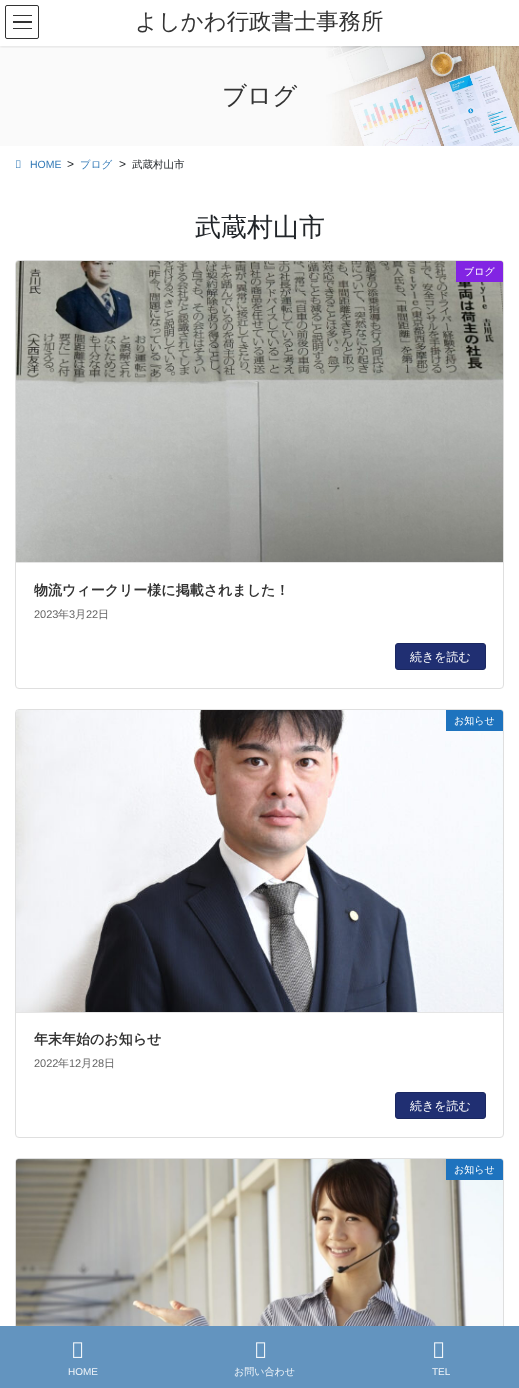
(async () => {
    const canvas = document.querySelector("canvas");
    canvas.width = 519;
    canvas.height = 1388;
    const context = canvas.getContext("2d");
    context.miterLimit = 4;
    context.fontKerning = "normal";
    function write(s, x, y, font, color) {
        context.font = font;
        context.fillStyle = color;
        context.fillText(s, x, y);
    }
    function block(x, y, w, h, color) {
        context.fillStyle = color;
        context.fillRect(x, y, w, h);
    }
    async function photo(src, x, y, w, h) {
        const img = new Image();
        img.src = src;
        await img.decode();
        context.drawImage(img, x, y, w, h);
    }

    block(0, 0, 519, 1388, "rgb(255, 255, 255)");
    await photo("media/1.png", 0, 46, 519, 100);
    context.save();
    context.beginPath();
    context.rect(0, 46, 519, 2);
    context.clip();
    context.fillStyle = "rgba(0, 0, 0, 0.1)";
    context.filter = "blur(1.5px)";
    context.beginPath();
    context.rect(0, 1, 519, 46);
    context.fill();
    context.filter = "none";
    context.restore();
    block(13, 15, 19, 1, "rgb(51, 51, 51)");
    block(13, 21, 19, 2, "rgb(51, 51, 51)");
    block(13, 28, 19, 1, "rgb(51, 51, 51)");
    context.beginPath();
    context.roundRect(5.5, 5.5, 33, 33, 1.5);
    context.strokeStyle = "rgb(51, 51, 51)";
    context.stroke();
    write("よしかわ行政書士事務所", 135, 29, "500 22.4px WenQuanYi Zen Hei", "rgb(51, 51, 51)");
    write("ブログ", 222, 104, "500 24.5px WenQuanYi Zen Hei", "rgb(51, 51, 51)");
    await photo("media/2.png", 16, 160, 5, 8);
    write("HOME", 30, 168, "10.5px Liberation Sans", "rgb(51, 122, 183)");
    write(">", 67, 168, "12px Liberation Sans", "rgb(33, 37, 41)");
    write("ブログ", 80, 168, "500 10.5px WenQuanYi Zen Hei", "rgb(51, 122, 183)");
    write(">", 119, 168, "12px Liberation Sans", "rgb(33, 37, 41)");
    write("武蔵村山市", 132, 168, "500 10.5px WenQuanYi Zen Hei", "rgb(33, 37, 41)");
    write("武蔵村山市", 195, 236, "500 26px WenQuanYi Zen Hei", "rgb(33, 37, 41)");
    context.beginPath();
    context.roundRect(15.5, 260.5, 488, 428, 3.5);
    context.strokeStyle = "rgb(223, 223, 223)";
    context.stroke();
    await photo("media/3.png", 16, 261, 487, 301);
    block(16, 562, 487, 1, "rgb(229, 229, 229)");
    context.fillStyle = "rgb(130, 36, 227)";
    context.beginPath();
    context.roundRect(456, 261, 47, 21, [0, 2.5, 0, 0]);
    context.fill();
    write("ブログ", 464, 275, "500 10px WenQuanYi Zen Hei", "rgb(255, 255, 255)");
    write("物流ウィークリー様に掲載されました！", 34, 595, "bold 14px WenQuanYi Zen Hei", "rgb(51, 51, 51)");
    write("2023", 34, 618, "11px Liberation Sans", "rgb(102, 102, 102)");
    write("年", 58, 618, "500 11px WenQuanYi Zen Hei", "rgb(102, 102, 102)");
    write("3", 69, 618, "11px Liberation Sans", "rgb(102, 102, 102)");
    write("月", 75, 618, "500 11px WenQuanYi Zen Hei", "rgb(102, 102, 102)");
    write("22", 86, 618, "11px Liberation Sans", "rgb(102, 102, 102)");
    write("日", 98, 618, "500 11px WenQuanYi Zen Hei", "rgb(102, 102, 102)");
    context.fillStyle = "rgb(32, 47, 114)";
    context.beginPath();
    context.roundRect(395.5, 643.5, 90, 26, 2.5);
    context.fill();
    context.strokeStyle = "rgb(27, 40, 97)";
    context.stroke();
    write("続きを読む", 410, 661, "500 12px WenQuanYi Zen Hei", "rgb(255, 255, 255)");
    context.beginPath();
    context.roundRect(15.5, 709.5, 488, 428, 3.5);
    context.strokeStyle = "rgb(223, 223, 223)";
    context.stroke();
    await photo("media/4.png", 16, 710, 487, 302);
    block(16, 1012, 487, 1, "rgb(229, 229, 229)");
    context.fillStyle = "rgb(30, 115, 190)";
    context.beginPath();
    context.roundRect(446, 710, 57, 21, [0, 2.5, 0, 0]);
    context.fill();
    write("お知らせ", 454, 724, "500 10px WenQuanYi Zen Hei", "rgb(255, 255, 255)");
    write("年末年始のお知らせ", 34, 1044, "bold 14px WenQuanYi Zen Hei", "rgb(51, 51, 51)");
    write("2022", 34, 1067, "11px Liberation Sans", "rgb(102, 102, 102)");
    write("年", 58, 1067, "500 11px WenQuanYi Zen Hei", "rgb(102, 102, 102)");
    write("12", 69, 1067, "11px Liberation Sans", "rgb(102, 102, 102)");
    write("月", 81, 1067, "500 11px WenQuanYi Zen Hei", "rgb(102, 102, 102)");
    write("28", 92, 1067, "11px Liberation Sans", "rgb(102, 102, 102)");
    write("日", 104, 1067, "500 11px WenQuanYi Zen Hei", "rgb(102, 102, 102)");
    context.fillStyle = "rgb(32, 47, 114)";
    context.beginPath();
    context.roundRect(395.5, 1092.5, 90, 26, 2.5);
    context.fill();
    context.strokeStyle = "rgb(27, 40, 97)";
    context.stroke();
    write("続きを読む", 410, 1110, "500 12px WenQuanYi Zen Hei", "rgb(255, 255, 255)");
    context.beginPath();
    context.roundRect(15.5, 1158.5, 488, 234, 3.5);
    context.strokeStyle = "rgb(223, 223, 223)";
    context.stroke();
    await photo("media/5.png", 16, 1159, 487, 167);
    context.fillStyle = "rgb(30, 115, 190)";
    context.beginPath();
    context.roundRect(446, 1159, 57, 21, [0, 2.5, 0, 0]);
    context.fill();
    write("お知らせ", 454, 1173, "500 10px WenQuanYi Zen Hei", "rgb(255, 255, 255)");
    block(0, 1326, 519, 62, "rgb(99, 148, 191)");
    await photo("media/6.png", 73, 1342, 10, 16);
    write("HOME", 68, 1375, "10px Liberation Sans", "rgb(239, 244, 249)");
    await photo("media/6.png", 256, 1342, 10, 16);
    write("お問い合わせ", 234, 1375, "500 10px WenQuanYi Zen Hei", "rgb(239, 244, 249)");
    await photo("media/6.png", 434, 1342, 10, 16);
    write("TEL", 432, 1375, "10px Liberation Sans", "rgb(239, 244, 249)");
})();
